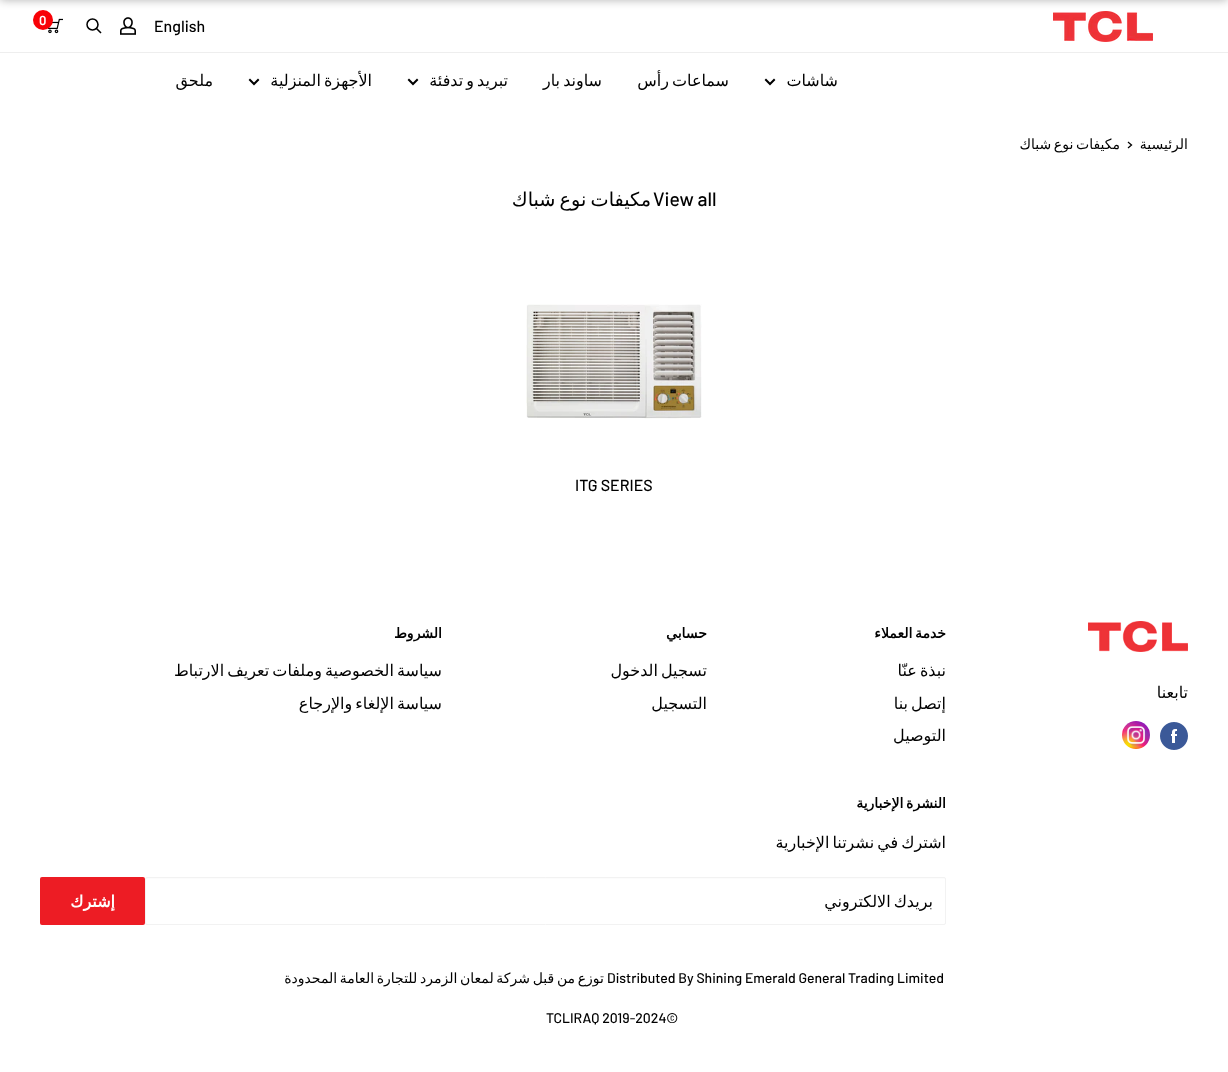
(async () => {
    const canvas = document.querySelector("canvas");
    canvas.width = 1228;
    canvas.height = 1072;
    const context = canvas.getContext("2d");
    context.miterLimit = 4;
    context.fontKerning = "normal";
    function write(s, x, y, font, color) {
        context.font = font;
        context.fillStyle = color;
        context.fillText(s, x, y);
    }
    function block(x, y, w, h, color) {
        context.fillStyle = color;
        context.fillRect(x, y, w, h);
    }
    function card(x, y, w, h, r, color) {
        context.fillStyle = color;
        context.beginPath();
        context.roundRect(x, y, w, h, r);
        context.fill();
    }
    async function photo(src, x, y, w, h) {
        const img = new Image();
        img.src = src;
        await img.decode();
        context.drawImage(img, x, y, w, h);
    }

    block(0, 0, 1228, 1072, "rgb(255, 255, 255)");
    block(0, 52, 1228, 1, "rgb(238, 238, 238)");
    await photo("media/1.png", 1053, 11, 100, 31);
    await photo("media/3.png", 48, 18, 15, 16);
    context.fillStyle = "rgb(248, 2, 7)";
    context.beginPath();
    context.arc(43, 20, 10, 0, Math.PI * 2);
    context.fill();
    context.fillStyle = "rgba(0, 0, 0, 0.3)";
    context.filter = "blur(5px)";
    context.beginPath();
    context.rect(0, -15, 1228, 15);
    context.fill();
    context.filter = "none";
    write("English", 154, 32, "500 16px Barlow", "rgb(0, 0, 0)");
    await photo("media/2.png", 120, 17, 16, 18);
    context.beginPath();
    context.moveTo(100.5, 32.5);
    context.lineTo(96.5, 28.5);
    context.strokeStyle = "rgb(0, 0, 0)";
    context.lineWidth = 1.5;
    context.lineCap = "square";
    context.stroke();
    context.beginPath();
    context.arc(92.5, 24.5, 5.5, 0, Math.PI * 2);
    context.stroke();
    write("0", 39, 25, "600 13px Barlow", "rgb(255, 255, 255)");
    context.direction = "rtl";
    write("شاشات", 838, 86, "16px DejaVu Sans", "rgb(0, 0, 0)");
    context.beginPath();
    context.moveTo(774, 80);
    context.lineTo(770, 84);
    context.lineTo(766, 80);
    context.lineWidth = 2;
    context.stroke();
    context.wordSpacing = "-2px";
    write("سماعات رأس", 729, 86, "16px DejaVu Sans", "rgb(0, 0, 0)");
    write("ساوند بار", 602, 86, "16px DejaVu Sans", "rgb(0, 0, 0)");
    write("تبريد و تدفئة", 508, 86, "16px DejaVu Sans", "rgb(0, 0, 0)");
    context.beginPath();
    context.moveTo(417, 80);
    context.lineTo(413, 84);
    context.lineTo(409, 80);
    context.stroke();
    write("الأجهزة المنزلية", 372, 86, "16px DejaVu Sans", "rgb(0, 0, 0)");
    context.beginPath();
    context.moveTo(258, 80);
    context.lineTo(254, 84);
    context.lineTo(250, 80);
    context.stroke();
    context.wordSpacing = "0px";
    write("ملحق", 213, 86, "16px DejaVu Sans", "rgb(0, 0, 0)");
    write("الرئيسية", 1188, 149, "14px DejaVu Sans", "rgb(0, 0, 0)");
    context.beginPath();
    context.moveTo(1128.5, 142.5);
    context.lineTo(1131.5, 145);
    context.lineTo(1128.5, 147.5);
    context.lineWidth = 1.3;
    context.stroke();
    context.wordSpacing = "-1.75px";
    write("مكيفات نوع شباك", 1120, 149, "14px DejaVu Sans", "rgb(0, 0, 0)");
    context.wordSpacing = "0px";
    context.direction = "ltr";
    write("View all", 653, 206, "500 19.25px Barlow", "rgb(0, 0, 0)");
    context.wordSpacing = "-2px";
    context.direction = "rtl";
    write("مكيفات نوع شباك", 651, 206, "19.25px DejaVu Sans", "rgb(0, 0, 0)");
    await photo("media/4.png", 526, 304, 176, 115);
    context.wordSpacing = "0px";
    context.direction = "ltr";
    write("ITG SERIES", 575, 491, "500 16px Barlow", "rgb(0, 0, 0)");
    await photo("media/5.png", 1088, 621, 100, 31);
    context.direction = "rtl";
    write("تابعنا", 1188, 698, "16px DejaVu Sans", "rgb(0, 0, 0)");
    await photo("media/6.png", 1160, 722, 28, 28);
    await photo("media/7.png", 1122, 721, 28, 28);
    context.wordSpacing = "-1.75px";
    write("خدمة العملاء", 946, 638, "bold 14px DejaVu Sans", "rgb(0, 0, 0)");
    context.wordSpacing = "-2px";
    write("نبذة عنّا", 946, 676, "16px DejaVu Sans", "rgb(0, 0, 0)");
    write("إتصل بنا", 946, 709, "16px DejaVu Sans", "rgb(0, 0, 0)");
    context.wordSpacing = "0px";
    write("التوصيل", 946, 741, "16px DejaVu Sans", "rgb(0, 0, 0)");
    write("حسابي", 707, 638, "bold 14px DejaVu Sans", "rgb(0, 0, 0)");
    context.wordSpacing = "-2px";
    write("تسجيل الدخول", 707, 676, "16px DejaVu Sans", "rgb(0, 0, 0)");
    context.wordSpacing = "0px";
    write("التسجيل", 707, 709, "16px DejaVu Sans", "rgb(0, 0, 0)");
    write("الشروط", 442, 638, "bold 14px DejaVu Sans", "rgb(0, 0, 0)");
    context.wordSpacing = "-2px";
    write("سياسة الخصوصية وملفات تعريف الارتباط", 442, 676, "16px DejaVu Sans", "rgb(0, 0, 0)");
    write("سياسة الإلغاء والإرجاع", 442, 709, "16px DejaVu Sans", "rgb(0, 0, 0)");
    context.wordSpacing = "-1.75px";
    write("النشرة الإخبارية", 946, 808, "bold 14px DejaVu Sans", "rgb(0, 0, 0)");
    context.wordSpacing = "-2px";
    write("اشترك في نشرتنا الإخبارية", 946, 848, "16px DejaVu Sans", "rgb(0, 0, 0)");
    context.fillStyle = "rgb(252, 252, 252)";
    context.beginPath();
    context.moveTo(147, 879);
    context.lineTo(944, 879);
    context.bezierCurveTo(945, 879, 945, 879, 945, 880);
    context.lineTo(945, 879);
    context.lineTo(944, 878);
    context.lineTo(147, 878);
    context.lineTo(146, 880);
    context.bezierCurveTo(146, 879, 146, 879, 147, 879);
    context.closePath();
    context.fill();
    context.beginPath();
    context.roundRect(145.5, 877.5, 800, 47, 1.5);
    context.strokeStyle = "rgb(242, 242, 242)";
    context.lineWidth = 1;
    context.stroke();
    write("بريدك الالكتروني", 933, 907, "16px DejaVu Sans", "rgb(0, 0, 0)");
    card(40, 877, 105, 48, 2, "rgb(237, 28, 36)");
    context.wordSpacing = "0px";
    write("إشترك", 115, 907, "bold 16px DejaVu Sans", "rgb(255, 255, 255)");
    context.wordSpacing = "-1.75px";
    write("توزع من قبل شركة لمعان الزمرد للتجارة العامة المحدودة", 604, 983, "14px DejaVu Sans", "rgb(0, 0, 0)");
    context.wordSpacing = "0px";
    context.direction = "ltr";
    write("Distributed By Shining Emerald General Trading Limited", 607, 983, "500 14px Barlow", "rgb(0, 0, 0)");
    write("TCLIRAQ 2019-2024©", 546, 1023, "500 14px Barlow", "rgb(0, 0, 0)");
})();
